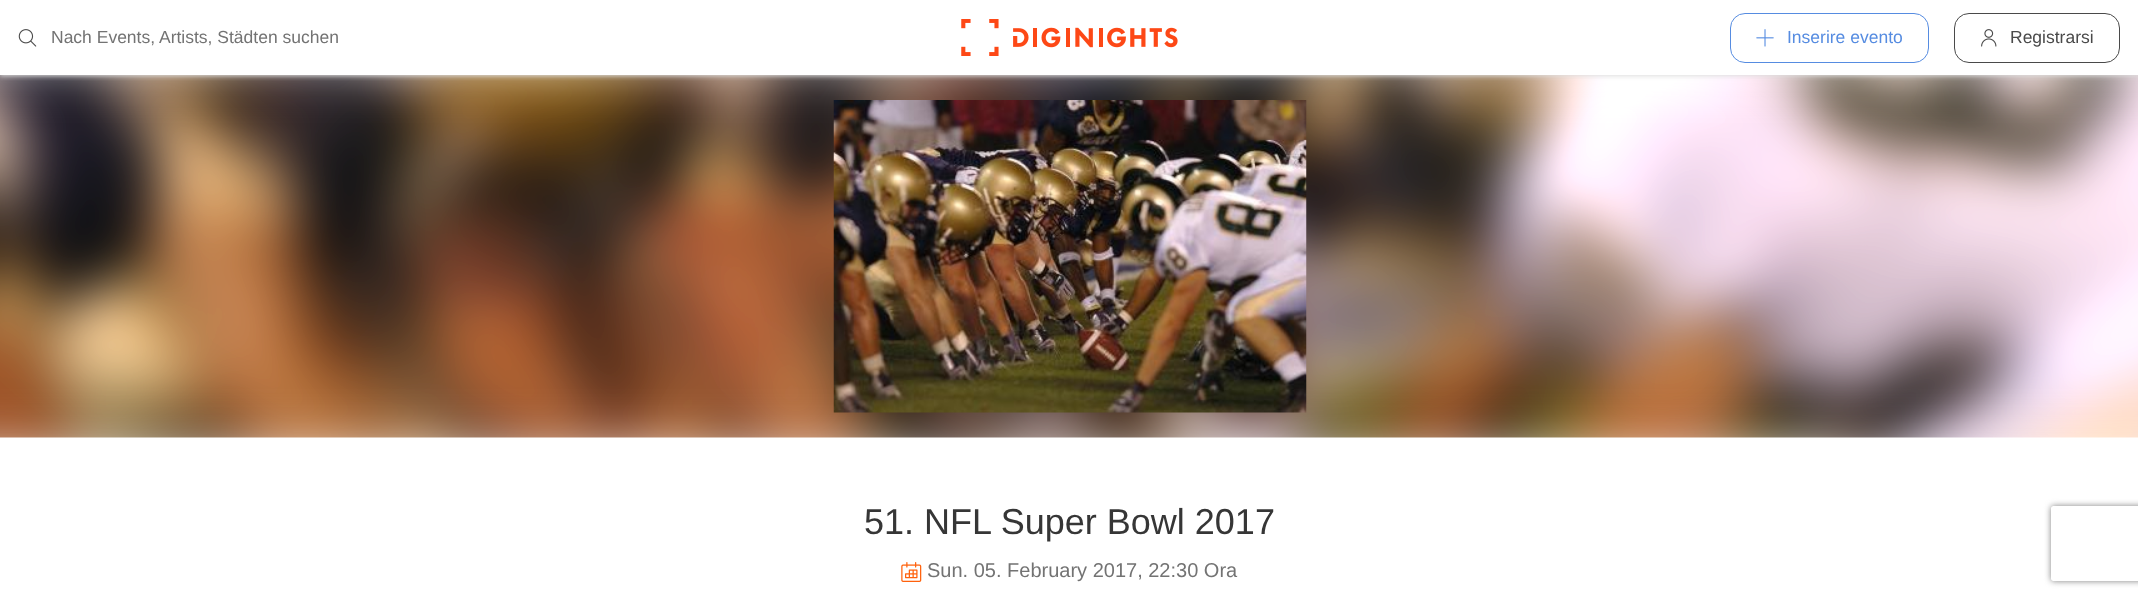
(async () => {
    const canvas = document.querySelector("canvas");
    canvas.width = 2138;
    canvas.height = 598;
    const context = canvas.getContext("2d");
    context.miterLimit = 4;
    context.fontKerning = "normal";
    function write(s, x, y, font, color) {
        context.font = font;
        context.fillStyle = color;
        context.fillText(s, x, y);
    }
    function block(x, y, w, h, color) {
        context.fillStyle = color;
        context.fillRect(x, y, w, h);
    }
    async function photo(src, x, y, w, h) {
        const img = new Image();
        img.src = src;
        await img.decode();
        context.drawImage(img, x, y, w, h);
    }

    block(0, 0, 2138, 598, "rgb(255, 255, 255)");
    await photo("media/5.png", 0, 75, 2138, 363);
    context.save();
    context.beginPath();
    context.rect(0, 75, 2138, 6);
    context.clip();
    context.fillStyle = "rgb(221, 221, 221)";
    context.filter = "blur(2.5px)";
    context.beginPath();
    context.rect(0, 1, 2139, 75);
    context.fill();
    context.filter = "none";
    context.restore();
    await photo("media/1.png", 18, 29, 19, 18);
    write("Nach Events, Artists, Städten suchen", 51, 43, "17.5px Liberation Sans", "rgb(115, 115, 115)");
    await photo("media/2.png", 961, 19, 217, 37);
    context.beginPath();
    context.roundRect(1730.5, 13.5, 198, 49, 14.5);
    context.strokeStyle = "rgb(86, 140, 225)";
    context.stroke();
    await photo("media/3.png", 1756, 29, 18, 18);
    write("Inserire evento", 1787, 43, "17.5px Liberation Sans", "rgb(86, 140, 225)");
    context.beginPath();
    context.roundRect(1954.5, 13.5, 165, 49, 14.5);
    context.strokeStyle = "rgb(74, 74, 74)";
    context.stroke();
    await photo("media/4.png", 1981, 29, 16, 18);
    write("Registrarsi", 2010, 43, "17.5px Liberation Sans", "rgb(74, 74, 74)");
    await photo("media/6.png", 833, 100, 474, 313);
    write("51. NFL Super Bowl 2017", 864, 534, "36px Liberation Sans", "rgb(54, 54, 54)");
    await photo("media/7.png", 901, 562, 21, 20);
    write("Sun. 05. February 2017, 22:30 Ora", 927, 577, "20px Liberation Sans", "rgb(115, 115, 115)");
    context.save();
    context.beginPath();
    context.moveTo(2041, 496);
    context.lineTo(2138, 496);
    context.lineTo(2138, 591);
    context.lineTo(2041, 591);
    context.closePath();
    context.moveTo(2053.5, 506);
    context.lineTo(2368.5, 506);
    context.bezierCurveTo(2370, 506, 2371, 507, 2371, 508.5);
    context.lineTo(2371, 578.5);
    context.bezierCurveTo(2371, 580, 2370, 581, 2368.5, 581);
    context.lineTo(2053.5, 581);
    context.bezierCurveTo(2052, 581, 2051, 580, 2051, 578.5);
    context.lineTo(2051, 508.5);
    context.bezierCurveTo(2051, 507, 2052, 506, 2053.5, 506);
    context.closePath();
    context.clip("evenodd");
    context.fillStyle = "rgb(128, 128, 128)";
    context.filter = "blur(3px)";
    context.beginPath();
    context.roundRect(2051, 506, 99, 75, 2.5);
    context.fill();
    context.filter = "none";
    context.restore();
})();
